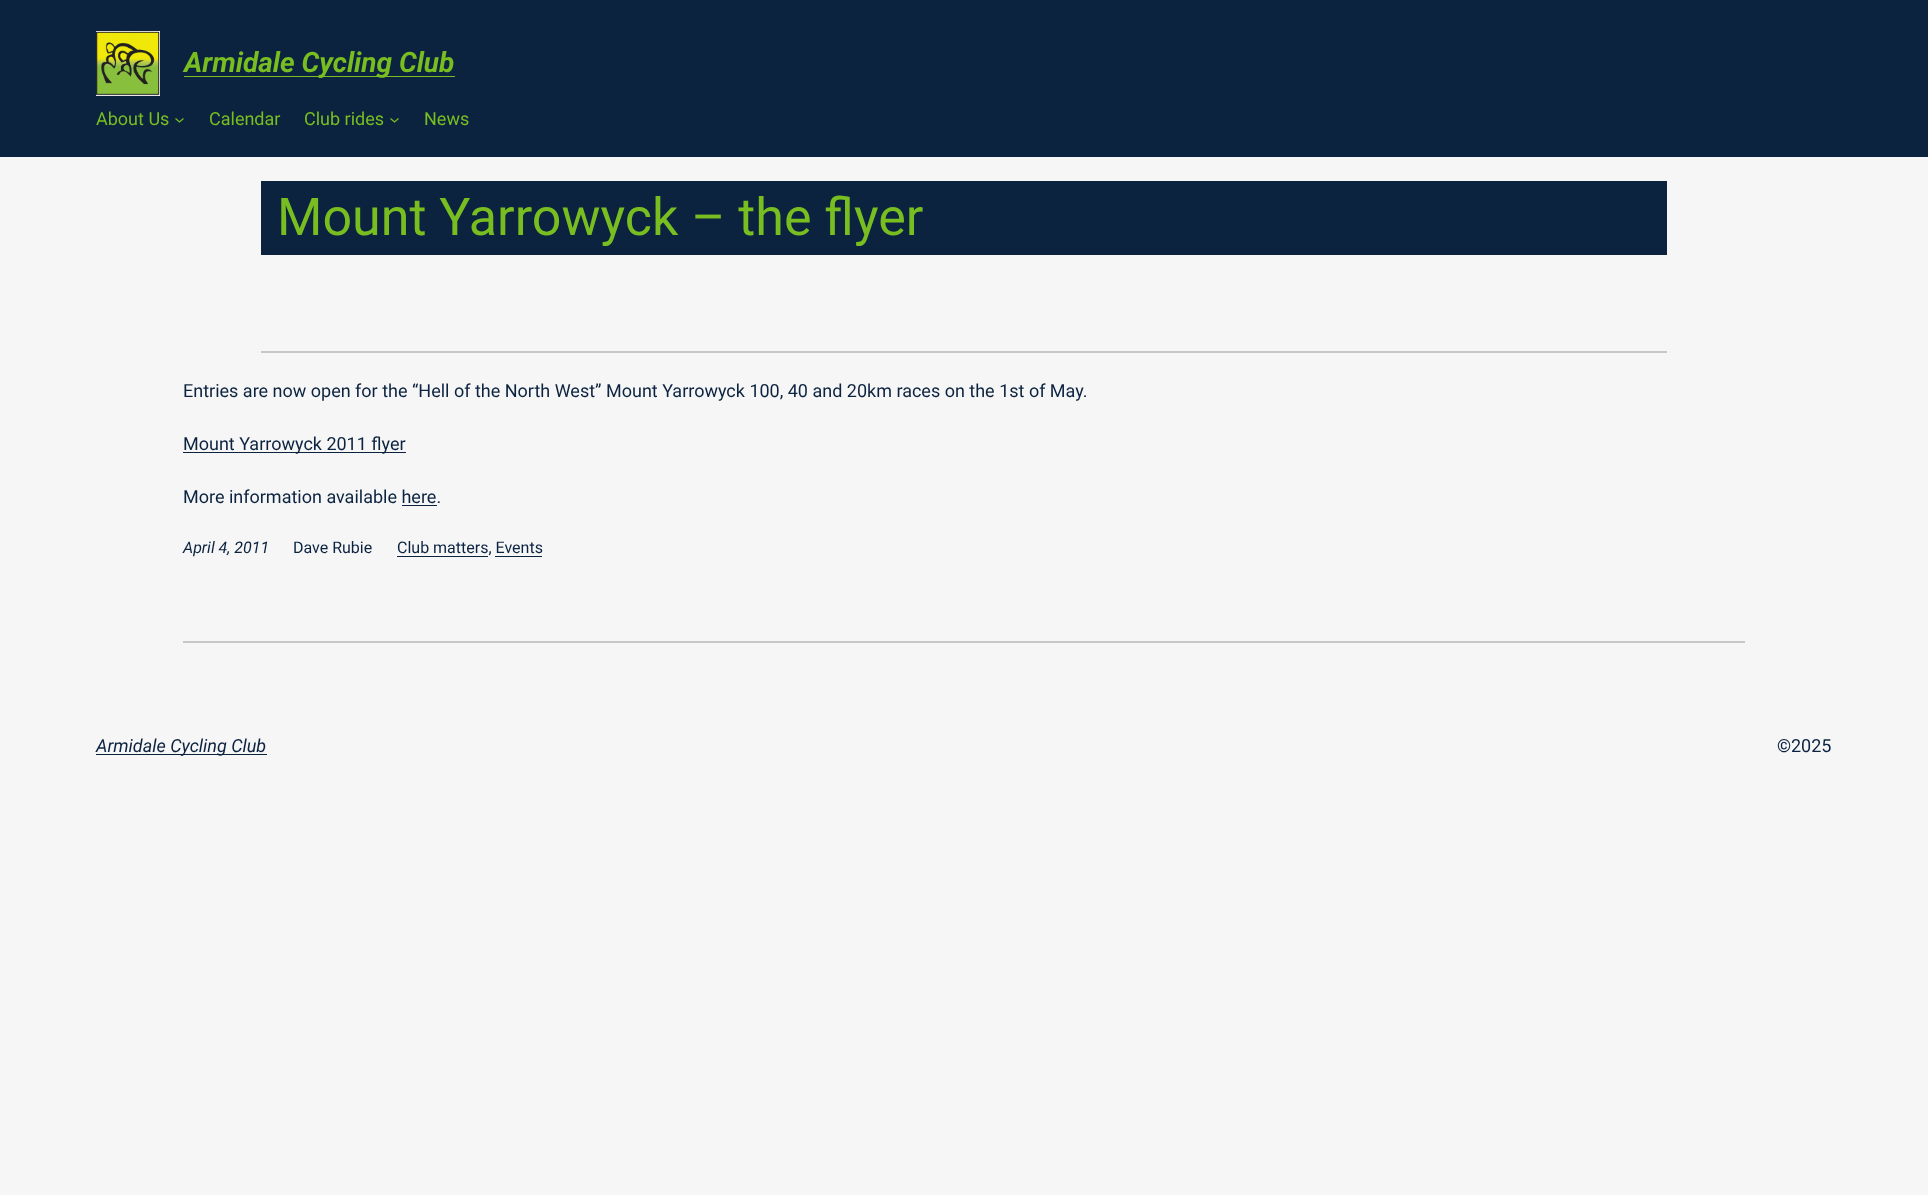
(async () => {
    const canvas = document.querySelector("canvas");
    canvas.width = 1928;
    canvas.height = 1195;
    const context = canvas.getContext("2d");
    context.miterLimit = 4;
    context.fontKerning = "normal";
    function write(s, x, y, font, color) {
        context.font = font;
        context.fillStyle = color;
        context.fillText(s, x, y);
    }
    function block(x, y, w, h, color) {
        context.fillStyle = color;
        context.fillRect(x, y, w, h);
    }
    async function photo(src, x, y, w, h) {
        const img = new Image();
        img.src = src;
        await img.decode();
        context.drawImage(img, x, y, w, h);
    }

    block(0, 0, 1928, 1195, "rgb(246, 246, 246)");
    block(0, 0, 1928, 157, "rgb(12, 35, 64)");
    await photo("media/1.png", 96, 31, 64, 65);
    block(184, 76, 271, 1, "rgb(120, 190, 32)");
    write("Armidale Cycling Club", 184, 72, "italic bold 28px Roboto", "rgb(120, 190, 32)");
    write("About Us", 96, 125, "18px Roboto", "rgb(120, 190, 32)");
    context.beginPath();
    context.moveTo(175.5, 118.5);
    context.lineTo(179.5, 122);
    context.lineTo(183.5, 118.5);
    context.strokeStyle = "rgb(120, 190, 32)";
    context.lineWidth = 1.3;
    context.stroke();
    write("Calendar", 209, 125, "18px Roboto", "rgb(120, 190, 32)");
    write("Club rides", 304, 125, "18px Roboto", "rgb(120, 190, 32)");
    context.beginPath();
    context.moveTo(390.5, 118.5);
    context.lineTo(394.5, 122);
    context.lineTo(398.5, 118.5);
    context.stroke();
    write("News", 424, 125, "18px Roboto", "rgb(120, 190, 32)");
    block(261, 181, 1406, 74, "rgb(12, 35, 64)");
    write("Mount Yarrowyck – the flyer", 277, 235, "52px Roboto", "rgb(120, 190, 32)");
    block(261, 351, 1406, 2, "rgb(199, 199, 199)");
    write("Entries are now open for the “Hell of the North West” Mount Yarrowyck 100, 40 and 20km races on the 1st of May.", 183, 397, "18px Roboto", "rgb(12, 35, 64)");
    block(183, 452, 223, 1, "rgb(12, 35, 64)");
    write("Mount Yarrowyck 2011 flyer", 183, 450, "18px Roboto", "rgb(12, 35, 64)");
    write("More information available here.", 183, 503, "18px Roboto", "rgb(12, 35, 64)");
    block(402, 505, 35, 1, "rgb(12, 35, 64)");
    write("April 4, 2011", 183, 553, "italic 16px Roboto", "rgb(12, 35, 64)");
    write("Dave Rubie", 293, 553, "16px Roboto", "rgb(12, 35, 64)");
    write("Club matters, Events", 397, 553, "16px Roboto", "rgb(12, 35, 64)");
    block(397, 556, 91, 1, "rgb(12, 35, 64)");
    block(495, 556, 47, 1, "rgb(12, 35, 64)");
    block(183, 641, 1562, 2, "rgb(199, 199, 199)");
    block(96, 754, 171, 1, "rgb(12, 35, 64)");
    write("Armidale Cycling Club", 96, 752, "italic 18px Roboto", "rgb(12, 35, 64)");
    write("©", 1777, 752, "bold 18px Roboto", "rgb(12, 35, 64)");
    write("2025", 1791, 752, "18px Roboto", "rgb(12, 35, 64)");
})();
